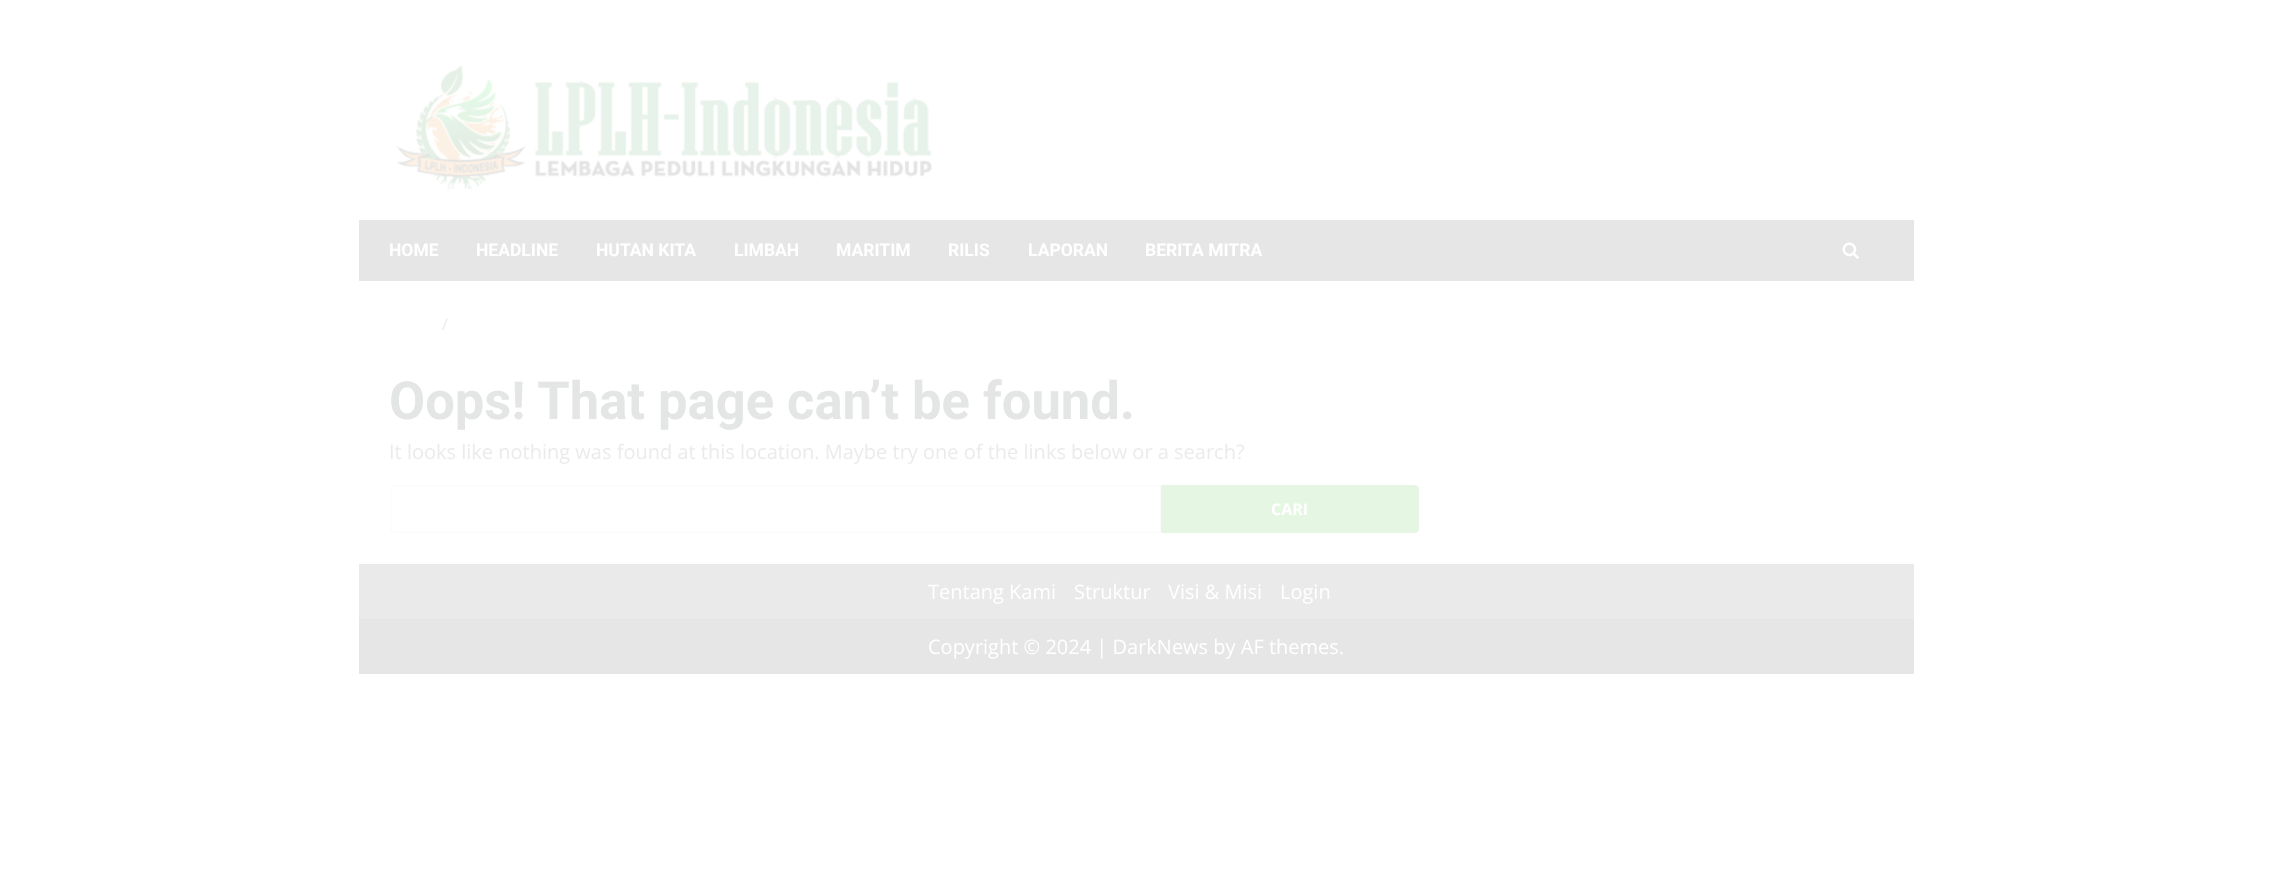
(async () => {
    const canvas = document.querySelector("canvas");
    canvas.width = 2271;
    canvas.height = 869;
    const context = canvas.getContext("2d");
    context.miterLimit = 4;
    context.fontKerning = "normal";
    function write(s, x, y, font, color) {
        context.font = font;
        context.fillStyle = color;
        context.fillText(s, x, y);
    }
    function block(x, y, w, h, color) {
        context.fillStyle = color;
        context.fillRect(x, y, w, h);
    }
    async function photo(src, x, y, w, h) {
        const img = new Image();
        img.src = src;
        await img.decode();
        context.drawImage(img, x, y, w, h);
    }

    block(0, 0, 2271, 869, "rgb(255, 255, 255)");
    await photo("media/1.png", 390, 63, 554, 126);
    block(359, 220, 1555, 61, "rgb(230, 230, 230)");
    write("HOME", 389, 256, "bold 17.5px Roboto", "rgb(255, 255, 255)");
    write("HEADLINE", 476, 256, "bold 17.5px Roboto", "rgb(255, 255, 255)");
    write("HUTAN KITA", 596, 256, "bold 17.5px Roboto", "rgb(255, 255, 255)");
    write("LIMBAH", 734, 256, "bold 17.5px Roboto", "rgb(255, 255, 255)");
    write("MARITIM", 836, 256, "bold 17.5px Roboto", "rgb(255, 255, 255)");
    write("RILIS", 948, 256, "bold 17.5px Roboto", "rgb(255, 255, 255)");
    write("LAPORAN", 1028, 256, "bold 17.5px Roboto", "rgb(255, 255, 255)");
    write("BERITA MITRA", 1145, 256, "bold 17.5px Roboto", "rgb(255, 255, 255)");
    await photo("media/2.png", 1842, 242, 17, 17);
    write("/", 442, 330, "16px Open Sans", "rgb(235, 235, 235)");
    write("Oops! That page can’t be found.", 389, 419, "bold 52.5px Roboto", "rgb(227, 230, 229)");
    write("It looks like nothing was found at this location. Maybe try one of the links below or a search?", 389, 459, "20px Open Sans", "rgb(235, 235, 235)");
    context.beginPath();
    context.roundRect(390.5, 485.5, 770, 47, [3.5, 0, 0, 3.5]);
    context.strokeStyle = "rgb(251, 251, 251)";
    context.stroke();
    context.fillStyle = "rgb(229, 247, 227)";
    context.beginPath();
    context.roundRect(1161.5, 485.5, 257, 47, [0, 3.5, 3.5, 0]);
    context.fill();
    context.strokeStyle = "rgb(229, 247, 227)";
    context.stroke();
    write("CARI", 1271, 515, "bold 16px Open Sans", "rgb(255, 255, 255)");
    block(359, 619, 1555, 55, "rgb(230, 230, 230)");
    block(359, 564, 1555, 55, "rgb(234, 234, 234)");
    write("Tentang Kami", 928, 599, "20px Open Sans", "rgb(255, 255, 255)");
    write("Struktur", 1074, 599, "20px Open Sans", "rgb(255, 255, 255)");
    write("Visi & Misi", 1168, 599, "20px Open Sans", "rgb(255, 255, 255)");
    write("Login", 1280, 599, "20px Open Sans", "rgb(255, 255, 255)");
    write("Copyright © 2024 | DarkNews by AF themes.", 928, 654, "20px Open Sans", "rgb(255, 255, 255)");
})();
